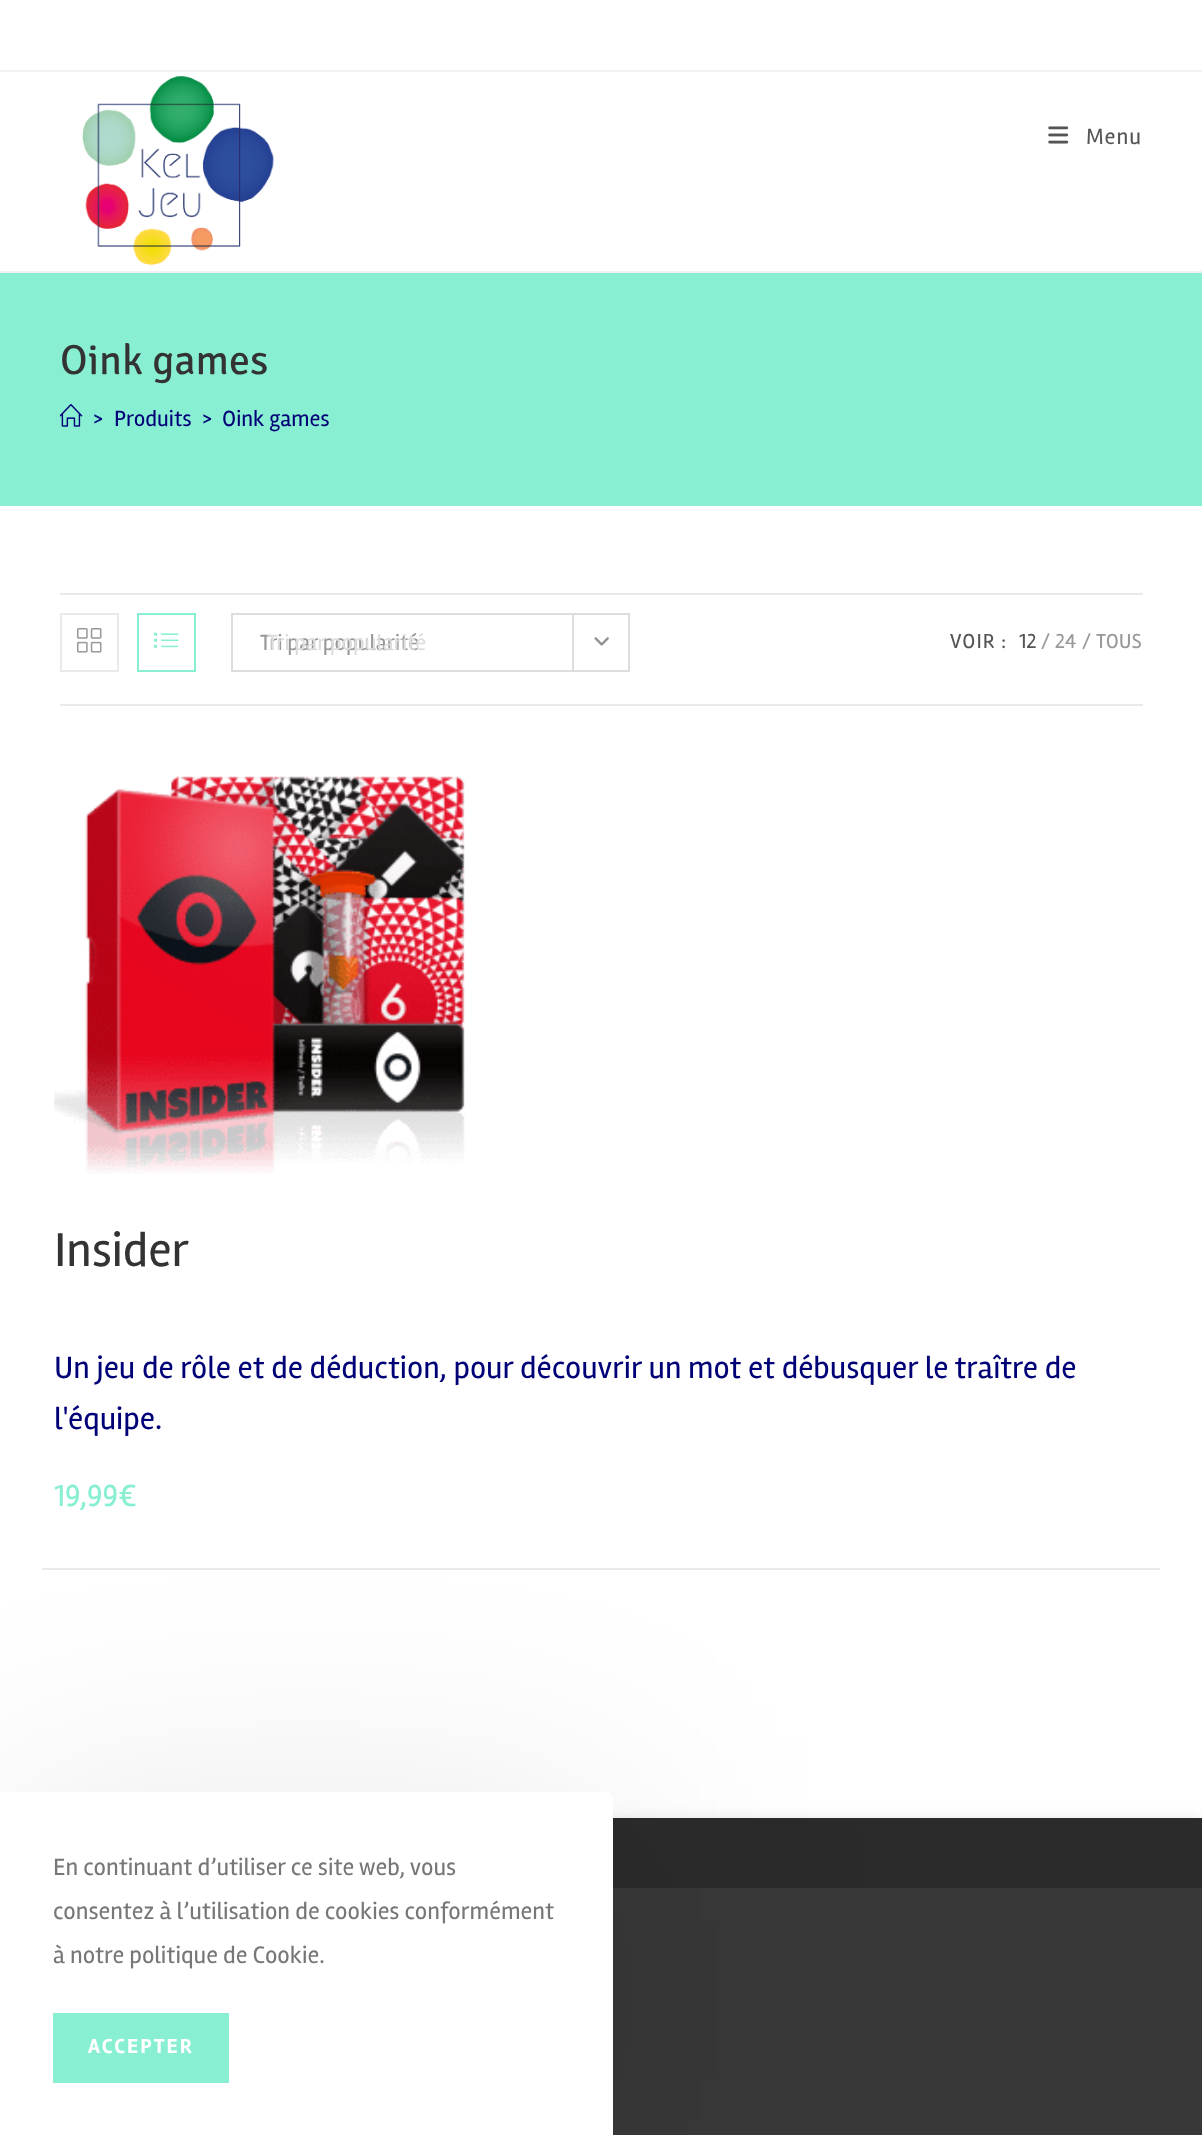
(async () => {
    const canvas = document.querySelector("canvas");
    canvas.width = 1202;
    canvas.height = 2135;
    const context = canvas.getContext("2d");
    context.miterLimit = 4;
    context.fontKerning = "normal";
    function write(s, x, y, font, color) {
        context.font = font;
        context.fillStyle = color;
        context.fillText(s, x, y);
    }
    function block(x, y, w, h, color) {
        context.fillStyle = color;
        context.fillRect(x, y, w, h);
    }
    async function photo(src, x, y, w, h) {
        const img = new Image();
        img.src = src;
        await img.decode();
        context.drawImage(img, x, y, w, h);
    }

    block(0, 0, 1202, 2135, "rgb(255, 255, 255)");
    block(0, 70, 1202, 2, "rgb(241, 241, 241)");
    block(0, 271, 1202, 2, "rgb(241, 241, 241)");
    await photo("media/1.png", 82, 76, 192, 189);
    await photo("media/2.png", 1048, 126, 21, 18);
    context.letterSpacing = "1px";
    write("Menu", 1086, 144, "22.75px Rambla", "rgb(85, 85, 85)");
    block(0, 273, 1202, 233, "rgb(136, 239, 211)");
    context.letterSpacing = "0px";
    write("Oink games", 60, 374, "42px Signika Negative", "rgb(51, 51, 51)");
    await photo("media/3.png", 60, 404, 23, 23);
    write(">", 93, 426, "22.75px Rambla", "rgb(0, 0, 119)");
    write("Produits", 114, 426, "22.75px Rambla", "rgb(0, 0, 119)");
    write(">", 202, 426, "22.75px Rambla", "rgb(0, 0, 119)");
    write("Oink games", 222, 426, "22.75px Rambla", "rgb(0, 0, 119)");
    block(60, 593, 1083, 2, "rgb(234, 234, 234)");
    block(60, 704, 1083, 2, "rgb(234, 234, 234)");
    context.strokeStyle = "rgb(234, 234, 234)";
    context.lineWidth = 2;
    context.strokeRect(61, 614, 57, 57);
    await photo("media/4.png", 77, 628, 25, 25);
    context.strokeStyle = "rgb(136, 239, 211)";
    context.strokeRect(138, 614, 57, 57);
    await photo("media/5.png", 154, 632, 25, 16);
    context.strokeStyle = "rgb(221, 221, 221)";
    context.strokeRect(232, 614, 397, 57);
    write("Tri par popularité", 260, 650, "22.75px Rambla", "rgb(153, 153, 153)");
    block(572, 614, 2, 56, "rgb(221, 221, 221)");
    await photo("media/6.png", 594, 637, 15, 9);
    write("Tri par popularité", 267, 650, "22.75px Rambla", "rgb(221, 221, 221)");
    context.letterSpacing = "1px";
    write("VOIR :", 950, 648, "21px Rambla", "rgb(85, 85, 85)");
    context.letterSpacing = "0px";
    write("12", 1019, 648, "21px Rambla", "rgb(85, 85, 85)");
    write("/", 1041, 648, "21px Rambla", "rgb(153, 153, 153)");
    write("24", 1055, 648, "21px Rambla", "rgb(153, 153, 153)");
    write("/", 1082, 648, "21px Rambla", "rgb(153, 153, 153)");
    write("TOUS", 1096, 648, "21px Rambla", "rgb(153, 153, 153)");
    block(42, 1568, 1118, 2, "rgb(234, 234, 234)");
    await photo("media/7.png", 54, 776, 411, 398);
    write("Insider", 54, 1266, "49px Rambla", "rgb(51, 51, 51)");
    write("Un jeu de rôle et de déduction, pour découvrir un mot et débusquer le traître de", 54, 1378, "31.85px Rambla", "rgb(0, 0, 119)");
    write("l'équipe.", 54, 1429, "31.85px Rambla", "rgb(0, 0, 119)");
    write("19,99€", 54, 1506, "31.5px Rambla", "rgb(136, 239, 211)");
    context.fillStyle = "rgba(26, 26, 26, 0.1)";
    context.filter = "blur(7px)";
    context.beginPath();
    context.rect(0, 1818, 1202, 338);
    context.fill();
    context.filter = "none";
    block(613, 1818, 589, 70, "rgb(43, 43, 43)");
    block(613, 1888, 589, 247, "rgb(56, 56, 56)");
    context.fillStyle = "rgba(0, 0, 0, 0.1)";
    context.filter = "blur(131px)";
    context.beginPath();
    context.roundRect(0, 1827, 613, 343, 7);
    context.fill();
    context.filter = "none";
    context.fillStyle = "rgb(255, 255, 255)";
    context.beginPath();
    context.roundRect(0, 1792, 613, 343, [0, 7, 0, 0]);
    context.fill();
    write("En continuant d’utiliser ce site web, vous", 53, 1875, "24.5px Rambla", "rgb(119, 119, 119)");
    write("consentez à l’utilisation de cookies conformément", 53, 1919, "24.5px Rambla", "rgb(119, 119, 119)");
    write("à notre politique de Cookie.", 53, 1963, "24.5px Rambla", "rgb(119, 119, 119)");
    block(53, 2013, 176, 70, "rgb(136, 239, 211)");
    context.letterSpacing = "2px";
    write("ACCEPTER", 88, 2053, "bold 21px Rambla", "rgb(255, 255, 255)");
})();
